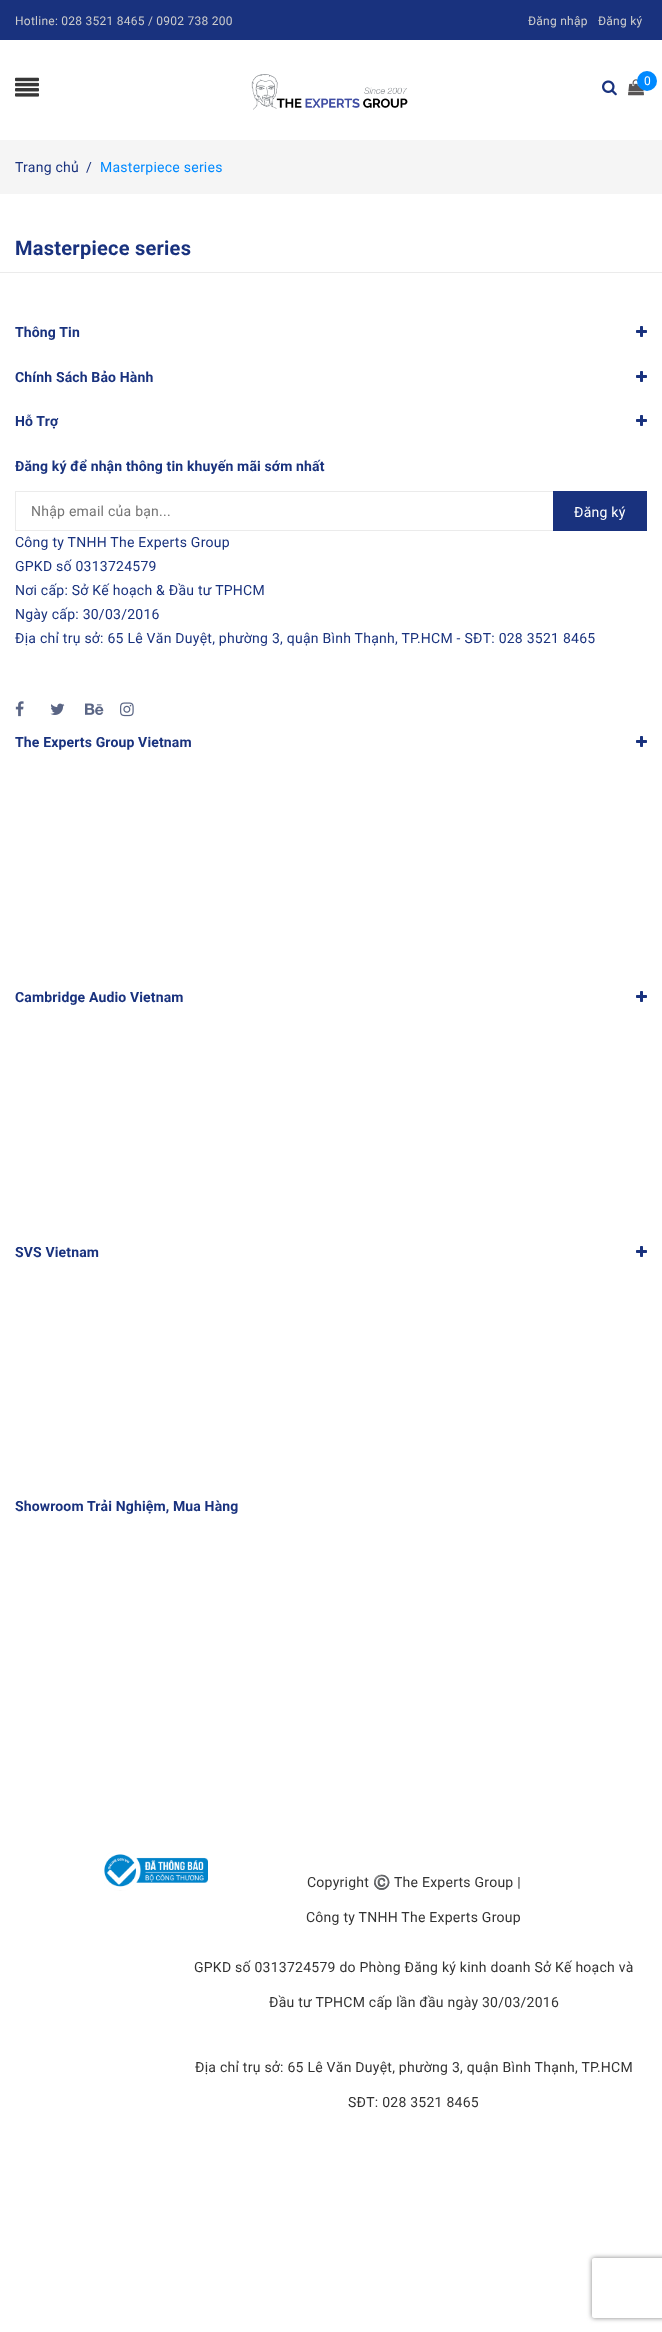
(async () => {
    const canvas = document.querySelector("canvas");
    canvas.width = 662;
    canvas.height = 2332;
    const context = canvas.getContext("2d");
    context.miterLimit = 4;
    context.fontKerning = "normal";
    function write(s, x, y, font, color) {
        context.font = font;
        context.fillStyle = color;
        context.fillText(s, x, y);
    }
    function block(x, y, w, h, color) {
        context.fillStyle = color;
        context.fillRect(x, y, w, h);
    }
    async function photo(src, x, y, w, h) {
        const img = new Image();
        img.src = src;
        await img.decode();
        context.drawImage(img, x, y, w, h);
    }

    block(0, 0, 662, 2332, "rgb(255, 255, 255)");
    block(0, 0, 662, 40, "rgb(25, 50, 126)");
    context.letterSpacing = "0.25px";
    write("Hotline: 028 3521 8465 / 0902 738 200", 15, 25, "12px Roboto", "rgb(204, 204, 204)");
    write("Đăng nhập", 528, 25, "12px Roboto", "rgb(204, 204, 204)");
    write("Đăng ký", 598, 25, "12px Roboto", "rgb(204, 204, 204)");
    await photo("media/1.png", 15, 77, 24, 20);
    await photo("media/2.png", 251, 74, 157, 36);
    await photo("media/3.png", 602, 80, 15, 16);
    await photo("media/4.png", 628, 79, 16, 17);
    context.fillStyle = "rgb(0, 137, 255)";
    context.beginPath();
    context.arc(647, 81, 10, 0, Math.PI * 2);
    context.fill();
    write("0", 644, 85, "12px Roboto", "rgb(255, 255, 255)");
    block(0, 140, 662, 54, "rgb(245, 245, 245)");
    write("Trang chủ", 15, 172, "14px Roboto", "rgb(25, 50, 126)");
    write("/", 86, 172, "14px Roboto", "rgb(25, 50, 126)");
    write("Masterpiece series", 100, 172, "14px Roboto", "rgb(0, 137, 255)");
    write("Masterpiece series", 15, 255, "bold 20px Roboto", "rgb(25, 50, 126)");
    block(0, 272, 662, 1, "rgb(235, 235, 235)");
    context.letterSpacing = "0.15px";
    write("Thông Tin", 15, 337, "bold 14px Roboto", "rgb(25, 50, 126)");
    await photo("media/5.png", 636, 326, 11, 11);
    write("Chính Sách Bảo Hành", 15, 382, "bold 14px Roboto", "rgb(25, 50, 126)");
    await photo("media/5.png", 636, 371, 11, 11);
    write("Hỗ Trợ", 15, 426, "bold 14px Roboto", "rgb(25, 50, 126)");
    await photo("media/5.png", 636, 415, 11, 11);
    write("Đăng ký để nhận thông tin khuyến mãi sớm nhất", 15, 471, "bold 14px Roboto", "rgb(25, 50, 126)");
    context.strokeStyle = "rgb(235, 235, 235)";
    context.strokeRect(15.5, 491.5, 631, 39);
    context.letterSpacing = "0.25px";
    write("Nhập email của bạn...", 31, 516, "14px Roboto", "rgb(117, 117, 117)");
    block(553, 491, 94, 40, "rgb(25, 50, 126)");
    write("Đăng ký", 574, 517, "14px Roboto", "rgb(255, 255, 255)");
    write("Công ty TNHH The Experts Group", 15, 547, "14px Roboto", "rgb(25, 50, 126)");
    write("GPKD số 0313724579", 15, 571, "14px Roboto", "rgb(25, 50, 126)");
    write("Nơi cấp: Sở Kế hoạch & Đầu tư TPHCM", 15, 595, "14px Roboto", "rgb(25, 50, 126)");
    write("Ngày cấp: 30/03/2016", 15, 619, "14px Roboto", "rgb(25, 50, 126)");
    write("Địa chỉ trụ sở: 65 Lê Văn Duyệt, phường 3, quận Bình Thạnh, TP.HCM - SĐT: 028 3521 8465", 15, 643, "14px Roboto", "rgb(25, 50, 126)");
    await photo("media/6.png", 15, 701, 9, 16);
    await photo("media/7.png", 50, 703, 15, 12);
    await photo("media/8.png", 85, 703, 19, 12);
    await photo("media/9.png", 120, 702, 14, 15);
    context.letterSpacing = "0.15px";
    write("The Experts Group Vietnam", 15, 747, "bold 14px Roboto", "rgb(25, 50, 126)");
    await photo("media/5.png", 636, 736, 11, 11);
    write("Cambridge Audio Vietnam", 15, 1002, "bold 14px Roboto", "rgb(25, 50, 126)");
    await photo("media/5.png", 636, 991, 11, 11);
    write("SVS Vietnam", 15, 1257, "bold 14px Roboto", "rgb(25, 50, 126)");
    await photo("media/5.png", 636, 1246, 11, 11);
    write("Showroom Trải Nghiệm, Mua Hàng", 15, 1511, "bold 14px Roboto", "rgb(25, 50, 126)");
    await photo("media/10.png", 104, 1850, 104, 41);
    context.letterSpacing = "0.25px";
    write("Copyright", 307, 1887, "14px Roboto", "rgb(51, 51, 51)");
    write("©️", 373, 1887, "14px Noto Color Emoji", "rgb(51, 51, 51)");
    write("The Experts Group |", 394, 1887, "14px Roboto", "rgb(51, 51, 51)");
    write("Công ty TNHH The Experts Group", 306, 1922, "14px Roboto", "rgb(51, 51, 51)");
    write("GPKD số 0313724579 do Phòng Đăng ký kinh doanh Sở Kế hoạch và", 194, 1972, "14px Roboto", "rgb(51, 51, 51)");
    write("Đầu tư TPHCM cấp lần đầu ngày 30/03/2016", 269, 2007, "14px Roboto", "rgb(51, 51, 51)");
    write("Địa chỉ trụ sở: 65 Lê Văn Duyệt, phường 3, quận Bình Thạnh, TP.HCM", 195, 2072, "14px Roboto", "rgb(51, 51, 51)");
    write("SĐT: 028 3521 8465", 348, 2107, "14px Roboto", "rgb(51, 51, 51)");
    context.save();
    context.beginPath();
    context.moveTo(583, 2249);
    context.lineTo(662, 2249);
    context.lineTo(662, 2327);
    context.lineTo(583, 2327);
    context.closePath();
    context.moveTo(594, 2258);
    context.lineTo(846, 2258);
    context.bezierCurveTo(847, 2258, 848, 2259, 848, 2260);
    context.lineTo(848, 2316);
    context.bezierCurveTo(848, 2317, 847, 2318, 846, 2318);
    context.lineTo(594, 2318);
    context.bezierCurveTo(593, 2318, 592, 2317, 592, 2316);
    context.lineTo(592, 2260);
    context.bezierCurveTo(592, 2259, 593, 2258, 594, 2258);
    context.closePath();
    context.clip("evenodd");
    context.fillStyle = "rgb(128, 128, 128)";
    context.filter = "blur(2.5px)";
    context.beginPath();
    context.roundRect(592, 2258, 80, 60, 2);
    context.fill();
    context.filter = "none";
    context.restore();
})();
